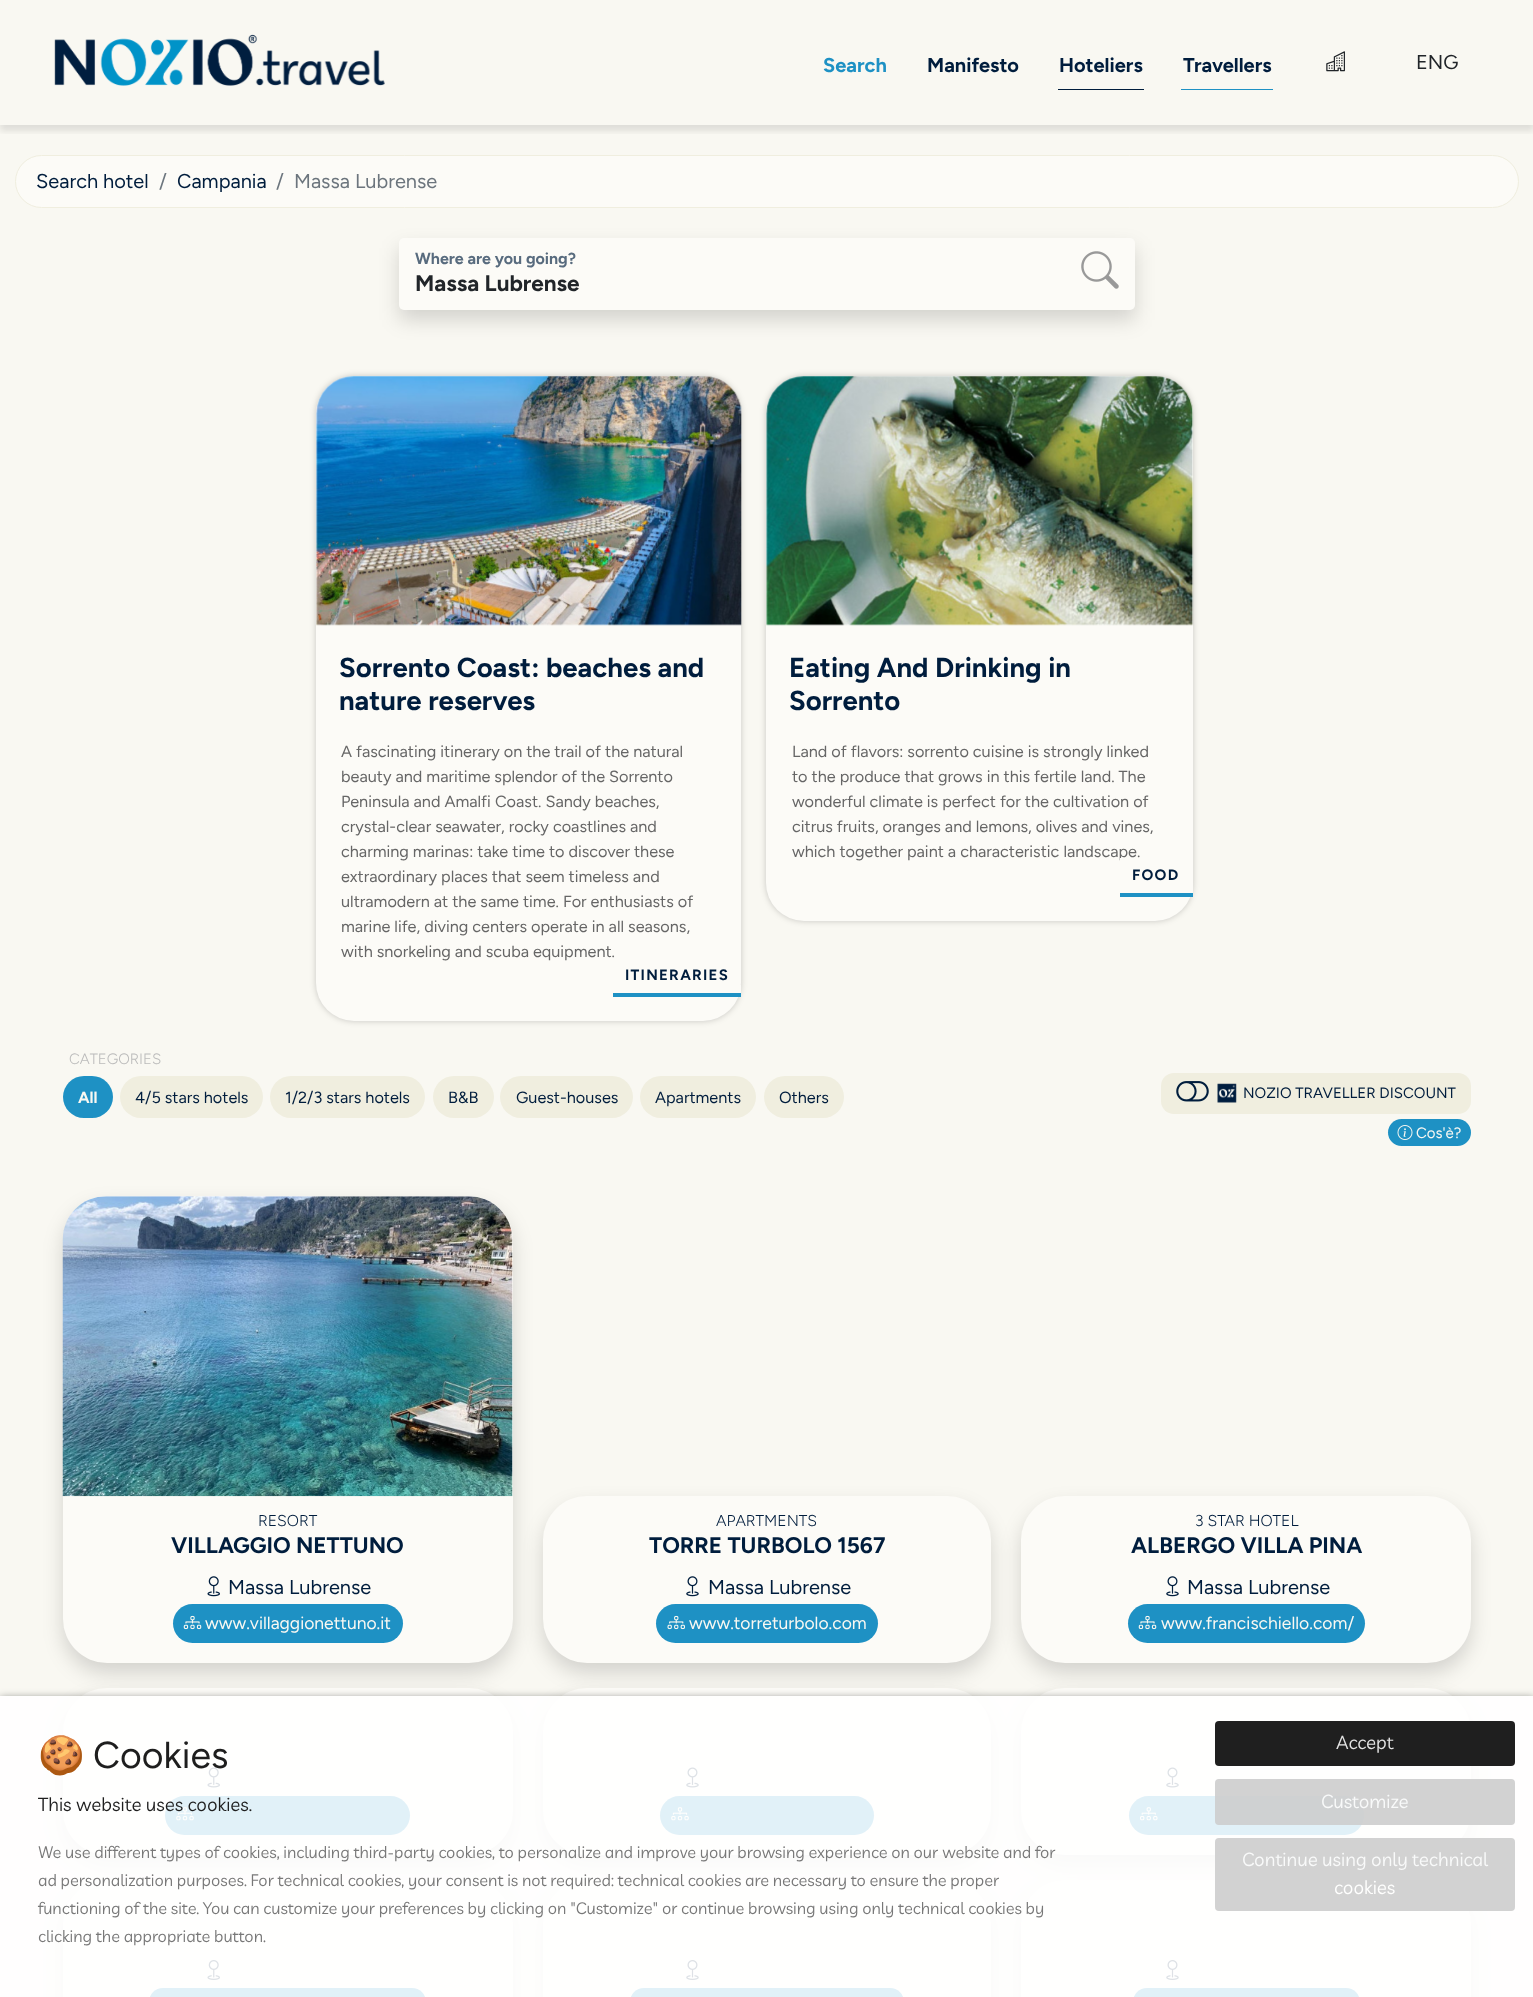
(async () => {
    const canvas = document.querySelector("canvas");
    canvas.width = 1533;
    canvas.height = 1997;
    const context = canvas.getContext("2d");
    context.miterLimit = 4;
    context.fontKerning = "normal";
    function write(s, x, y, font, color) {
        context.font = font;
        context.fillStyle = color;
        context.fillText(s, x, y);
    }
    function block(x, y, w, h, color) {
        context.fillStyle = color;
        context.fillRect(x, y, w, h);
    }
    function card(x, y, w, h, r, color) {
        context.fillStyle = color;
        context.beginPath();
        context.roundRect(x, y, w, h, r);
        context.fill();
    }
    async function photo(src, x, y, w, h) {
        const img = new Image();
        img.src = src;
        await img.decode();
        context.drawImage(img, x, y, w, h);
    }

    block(0, 0, 1533, 1997, "rgb(249, 248, 242)");
    context.save();
    context.beginPath();
    context.rect(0, 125, 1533, 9);
    context.clip();
    context.fillStyle = "rgba(0, 0, 0, 0.1)";
    context.filter = "blur(3px)";
    context.beginPath();
    context.rect(0, 6, 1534, 125);
    context.fill();
    context.filter = "none";
    context.restore();
    await photo("media/1.png", 54, 34, 331, 52);
    write("Search", 823, 72, "bold 20px Figtree", "rgb(30, 145, 196)");
    write("Manifesto", 927, 72, "bold 20px Figtree", "rgb(0, 29, 61)");
    block(1058, 89, 86, 1, "rgb(0, 29, 61)");
    write("Hoteliers", 1059, 72, "bold 20px Figtree", "rgb(0, 29, 61)");
    block(1181, 89, 92, 1, "rgb(30, 145, 196)");
    write("Travellers", 1183, 72, "bold 20px Figtree", "rgb(0, 29, 61)");
    await photo("media/2.png", 1326, 51, 19, 21);
    write("ENG", 1416, 69, "20px Figtree", "rgb(33, 37, 41)");
    context.fillStyle = "rgb(252, 251, 247)";
    context.beginPath();
    context.roundRect(15.5, 155.5, 1503, 52, 26);
    context.fill();
    context.strokeStyle = "rgb(240, 238, 223)";
    context.stroke();
    write("Search hotel", 36, 188, "20px Figtree", "rgb(0, 29, 61)");
    write("/", 159, 188, "20px Figtree", "rgb(108, 117, 125)");
    write("Campania", 177, 188, "20px Figtree", "rgb(0, 29, 61)");
    write("/", 276, 188, "20px Figtree", "rgb(108, 117, 125)");
    write("Massa Lubrense", 294, 188, "20px Figtree", "rgb(108, 117, 125)");
    context.fillStyle = "rgba(0, 0, 0, 0.15)";
    context.filter = "blur(10px)";
    context.beginPath();
    context.rect(399, 248, 736, 72);
    context.fill();
    context.filter = "none";
    card(399, 238, 736, 72, 5, "rgb(252, 251, 247)");
    write("Where are you going?", 415, 264, "bold 16px Figtree", "rgb(88, 107, 126)");
    await photo("media/3.png", 1081, 251, 38, 38);
    write("Massa Lubrense", 415, 291, "bold 22.5px Figtree", "rgb(33, 37, 41)");
    context.fillStyle = "rgba(1, 1, 1, 0.2)";
    context.filter = "blur(3px)";
    context.beginPath();
    context.roundRect(316, 376, 425, 645, 38);
    context.fill();
    context.filter = "none";
    card(316, 376, 425, 645, 38, "rgb(252, 251, 247)");
    await photo("media/4.png", 316, 376, 426, 250);
    write("Sorrento Coast: beaches and", 339, 677, "bold 27.5px Figtree", "rgb(0, 29, 61)");
    write("nature reserves", 339, 710, "bold 27.5px Figtree", "rgb(0, 29, 61)");
    write("A fascinating itinerary on the trail of the natural", 341, 757, "16.25px Figtree", "rgb(102, 102, 102)");
    write("beauty and maritime splendor of the Sorrento", 341, 782, "16.25px Figtree", "rgb(102, 102, 102)");
    write("Peninsula and Amalfi Coast. Sandy beaches,", 341, 807, "16.25px Figtree", "rgb(102, 102, 102)");
    write("crystal-clear seawater, rocky coastlines and", 341, 832, "16.25px Figtree", "rgb(102, 102, 102)");
    write("charming marinas: take time to discover these", 341, 857, "16.25px Figtree", "rgb(102, 102, 102)");
    write("extraordinary places that seem timeless and", 341, 882, "16.25px Figtree", "rgb(102, 102, 102)");
    write("ultramodern at the same time. For enthusiasts of", 341, 907, "16.25px Figtree", "rgb(102, 102, 102)");
    write("marine life, diving centers operate in all seasons,", 341, 932, "16.25px Figtree", "rgb(102, 102, 102)");
    write("with snorkeling and scuba equipment.", 341, 957, "16.25px Figtree", "rgb(102, 102, 102)");
    block(739, 985, 2, 8, "rgb(252, 251, 247)");
    block(613, 993, 128, 4, "rgb(30, 145, 196)");
    context.letterSpacing = "1.25px";
    write("ITINERARIES", 625, 980, "bold 15px Figtree", "rgb(0, 29, 61)");
    context.fillStyle = "rgba(1, 1, 1, 0.2)";
    context.filter = "blur(3px)";
    context.beginPath();
    context.roundRect(766, 376, 427, 545, 38);
    context.fill();
    context.filter = "none";
    card(766, 376, 427, 545, 38, "rgb(252, 251, 247)");
    await photo("media/5.png", 766, 376, 428, 250);
    context.letterSpacing = "0px";
    write("Eating And Drinking in", 789, 677, "bold 27.5px Figtree", "rgb(0, 29, 61)");
    write("Sorrento", 789, 710, "bold 27.5px Figtree", "rgb(0, 29, 61)");
    write("Land of flavors: sorrento cuisine is strongly linked", 792, 757, "16.25px Figtree", "rgb(102, 102, 102)");
    write("to the produce that grows in this fertile land. The", 792, 782, "16.25px Figtree", "rgb(102, 102, 102)");
    write("wonderful climate is perfect for the cultivation of", 792, 807, "16.25px Figtree", "rgb(102, 102, 102)");
    write("citrus fruits, oranges and lemons, olives and vines,", 792, 832, "16.25px Figtree", "rgb(102, 102, 102)");
    write("which together paint a characteristic landscape.", 792, 857, "16.25px Figtree", "rgb(102, 102, 102)");
    block(1120, 858, 73, 35, "rgb(252, 251, 247)");
    block(1120, 893, 73, 4, "rgb(30, 145, 196)");
    context.letterSpacing = "1.25px";
    write("FOOD", 1132, 880, "bold 15px Figtree", "rgb(0, 29, 61)");
    context.letterSpacing = "0px";
    write("CATEGORIES", 69, 1064, "300 15px Figtree", "rgb(187, 187, 187)");
    card(63, 1076, 50, 42, 21, "rgb(30, 145, 196)");
    write("All", 78, 1103, "bold 16.25px Figtree", "rgb(249, 248, 242)");
    card(120, 1076, 143, 42, 21, "rgb(240, 238, 223)");
    write("4/5 stars hotels", 135, 1103, "16.25px Figtree", "rgb(0, 29, 61)");
    card(270, 1076, 155, 42, 21, "rgb(240, 238, 223)");
    write("1/2/3 stars hotels", 285, 1103, "16.25px Figtree", "rgb(0, 29, 61)");
    card(433, 1076, 61, 42, 21, "rgb(240, 238, 223)");
    write("B&B", 448, 1103, "16.25px Figtree", "rgb(0, 29, 61)");
    card(500, 1076, 133, 42, 21, "rgb(240, 238, 223)");
    write("Guest-houses", 516, 1103, "16.25px Figtree", "rgb(0, 29, 61)");
    card(640, 1076, 116, 42, 21, "rgb(240, 238, 223)");
    write("Apartments", 655, 1103, "16.25px Figtree", "rgb(0, 29, 61)");
    card(764, 1076, 80, 42, 21, "rgb(240, 238, 223)");
    write("Others", 779, 1103, "16.25px Figtree", "rgb(0, 29, 61)");
    card(1161, 1073, 310, 41, 13, "rgb(240, 238, 223)");
    await photo("media/6.png", 1176, 1081, 33, 21);
    await photo("media/7.png", 1217, 1083, 20, 20);
    write("NOZIO TRAVELLER DISCOUNT", 1243, 1098, "15px Figtree", "rgb(0, 29, 61)");
    card(1388, 1119, 83, 27, 13.5, "rgb(30, 145, 196)");
    await photo("media/8.png", 1397, 1125, 16, 15);
    write("Cos'è?", 1416, 1138, "15px Figtree", "rgb(249, 248, 242)");
    context.fillStyle = "rgba(0, 0, 0, 0.15)";
    context.filter = "blur(10px)";
    context.beginPath();
    context.roundRect(63, 1206, 450, 467, 44);
    context.fill();
    context.filter = "none";
    card(63, 1196, 450, 467, 44, "rgb(252, 251, 247)");
    context.fillStyle = "rgba(0, 0, 0, 0.15)";
    context.filter = "blur(10px)";
    context.beginPath();
    context.roundRect(543, 1506, 448, 167, 44);
    context.fill();
    context.filter = "none";
    await photo("media/9.png", 62, 1196, 451, 301);
    write("RESORT", 258, 1526, "300 15.75px Figtree", "rgb(0, 29, 61)");
    write("VILLAGGIO NETTUNO", 171, 1553, "bold 22.5px Figtree", "rgb(0, 29, 61)");
    await photo("media/10.png", 207, 1576, 13, 21);
    write("Massa Lubrense", 228, 1594, "20px Figtree", "rgb(0, 29, 61)");
    card(173, 1604, 230, 39, 19.5, "rgb(30, 145, 196)");
    await photo("media/11.png", 183, 1615, 19, 15);
    write("www.villaggionettuno.it", 205, 1629, "17.5px Figtree", "rgb(249, 248, 242)");
    card(543, 1496, 448, 167, 44, "rgb(252, 251, 247)");
    write("APARTMENTS", 716, 1526, "300 15.75px Figtree", "rgb(0, 29, 61)");
    write("TORRE TURBOLO 1567", 649, 1553, "bold 22.5px Figtree", "rgb(0, 29, 61)");
    await photo("media/12.png", 686, 1576, 13, 21);
    write("Massa Lubrense", 708, 1594, "20px Figtree", "rgb(0, 29, 61)");
    card(656, 1604, 222, 39, 19.5, "rgb(30, 145, 196)");
    await photo("media/13.png", 667, 1615, 18, 15);
    write("www.torreturbolo.com", 689, 1629, "17.5px Figtree", "rgb(249, 248, 242)");
    context.fillStyle = "rgba(0, 0, 0, 0.15)";
    context.filter = "blur(10px)";
    context.beginPath();
    context.roundRect(1021, 1506, 450, 167, 44);
    context.fill();
    context.filter = "none";
    card(1021, 1496, 450, 167, 44, "rgb(252, 251, 247)");
    write("3 STAR HOTEL", 1195, 1526, "300 15.75px Figtree", "rgb(0, 29, 61)");
    write("ALBERGO VILLA PINA", 1131, 1553, "bold 22.5px Figtree", "rgb(0, 29, 61)");
    await photo("media/12.png", 1166, 1576, 13, 21);
    write("Massa Lubrense", 1187, 1594, "20px Figtree", "rgb(0, 29, 61)");
    card(1128, 1604, 237, 39, 19.5, "rgb(30, 145, 196)");
    await photo("media/11.png", 1138, 1615, 19, 15);
    write("www.francischiello.com/", 1161, 1629, "17.5px Figtree", "rgb(249, 248, 242)");
    context.fillStyle = "rgba(0, 0, 0, 0.15)";
    context.filter = "blur(10px)";
    context.beginPath();
    context.roundRect(63, 1698, 450, 167, 44);
    context.fill();
    context.filter = "none";
    card(63, 1688, 450, 167, 44, "rgb(252, 251, 247)");
    await photo("media/14.png", 207, 1767, 13, 21);
    card(165, 1796, 245, 39, 19.5, "rgb(30, 145, 196)");
    await photo("media/15.png", 176, 1807, 18, 14);
    context.fillStyle = "rgba(0, 0, 0, 0.15)";
    context.filter = "blur(10px)";
    context.beginPath();
    context.roundRect(543, 1698, 448, 167, 44);
    context.fill();
    context.filter = "none";
    card(543, 1688, 448, 167, 44, "rgb(252, 251, 247)");
    await photo("media/16.png", 686, 1767, 13, 21);
    card(660, 1796, 214, 39, 19.5, "rgb(30, 145, 196)");
    await photo("media/15.png", 671, 1807, 18, 14);
    context.fillStyle = "rgba(0, 0, 0, 0.15)";
    context.filter = "blur(10px)";
    context.beginPath();
    context.roundRect(1021, 1698, 450, 167, 44);
    context.fill();
    context.filter = "none";
    card(1021, 1688, 450, 167, 44, "rgb(252, 251, 247)");
    await photo("media/16.png", 1166, 1767, 13, 21);
    card(1129, 1796, 235, 39, 19.5, "rgb(30, 145, 196)");
    await photo("media/17.png", 1140, 1807, 18, 14);
    context.fillStyle = "rgba(0, 0, 0, 0.15)";
    context.filter = "blur(10px)";
    context.beginPath();
    context.roundRect(63, 1890, 450, 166, 44);
    context.fill();
    context.filter = "none";
    card(63, 1880, 450, 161, 44, "rgb(252, 251, 247)");
    await photo("media/18.png", 207, 1960, 13, 20);
    card(149, 1988, 277, 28, 19, "rgb(30, 145, 196)");
    context.fillStyle = "rgba(0, 0, 0, 0.15)";
    context.filter = "blur(10px)";
    context.beginPath();
    context.roundRect(543, 1890, 448, 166, 44);
    context.fill();
    context.filter = "none";
    card(543, 1880, 448, 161, 44, "rgb(252, 251, 247)");
    await photo("media/19.png", 686, 1960, 13, 20);
    card(630, 1988, 274, 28, 19, "rgb(30, 145, 196)");
    context.fillStyle = "rgba(0, 0, 0, 0.15)";
    context.filter = "blur(10px)";
    context.beginPath();
    context.roundRect(1021, 1890, 450, 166, 44);
    context.fill();
    context.filter = "none";
    card(1021, 1880, 450, 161, 44, "rgb(252, 251, 247)");
    await photo("media/19.png", 1166, 1960, 13, 20);
    card(1133, 1988, 227, 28, 19, "rgb(30, 145, 196)");
    context.save();
    context.beginPath();
    context.moveTo(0, 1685);
    context.lineTo(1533, 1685);
    context.lineTo(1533, 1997);
    context.lineTo(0, 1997);
    context.closePath();
    context.moveTo(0, 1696);
    context.lineTo(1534, 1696);
    context.lineTo(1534, 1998);
    context.lineTo(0, 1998);
    context.closePath();
    context.clip("evenodd");
    context.fillStyle = "rgba(0, 0, 0, 0.48)";
    context.filter = "blur(4px)";
    context.beginPath();
    context.rect(0, 1698, 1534, 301);
    context.fill();
    context.filter = "none";
    context.restore();
    block(0, 1696, 1533, 301, "rgba(255, 255, 255, 0.87)");
    write("🍪", 38, 1768, "37.5px Noto Color Emoji", "rgb(30, 30, 30)");
    write("Cookies", 93, 1768, "37.5px Figtree", "rgb(30, 30, 30)");
    card(1215, 1721, 300, 45, 4, "rgba(0, 0, 0, 0.88)");
    write("Accept", 1336, 1749, "18.75px Livvic", "rgb(228, 228, 228)");
    card(1215, 1779, 300, 46, 4, "rgba(204, 204, 204, 0.88)");
    write("Customize", 1321, 1808, "18.75px Livvic", "rgb(249, 250, 250)");
    card(1215, 1838, 300, 73, 4, "rgba(204, 204, 204, 0.88)");
    write("Continue using only technical", 1242, 1866, "18.75px Livvic", "rgb(249, 250, 250)");
    write("cookies", 1334, 1894, "18.75px Livvic", "rgb(255, 255, 254)");
    write("This website uses cookies.", 38, 1811, "18.75px Livvic", "rgb(30, 30, 30)");
    write("We use different types of cookies, including third-party cookies, to personalize and improve your browsing experience on our website and for", 38, 1858, "16.4px Livvic", "rgb(120, 120, 120)");
    write("ad personalization purposes. For technical cookies, your consent is not required: technical cookies are necessary to ensure the proper", 38, 1886, "16.4px Livvic", "rgb(120, 120, 120)");
    write("functioning of the site. You can customize your preferences by clicking on \"Customize\" or continue browsing using only technical cookies by", 38, 1914, "16.4px Livvic", "rgb(120, 120, 120)");
    write("clicking the appropriate button.", 38, 1942, "16.4px Livvic", "rgb(120, 120, 120)");
})();
